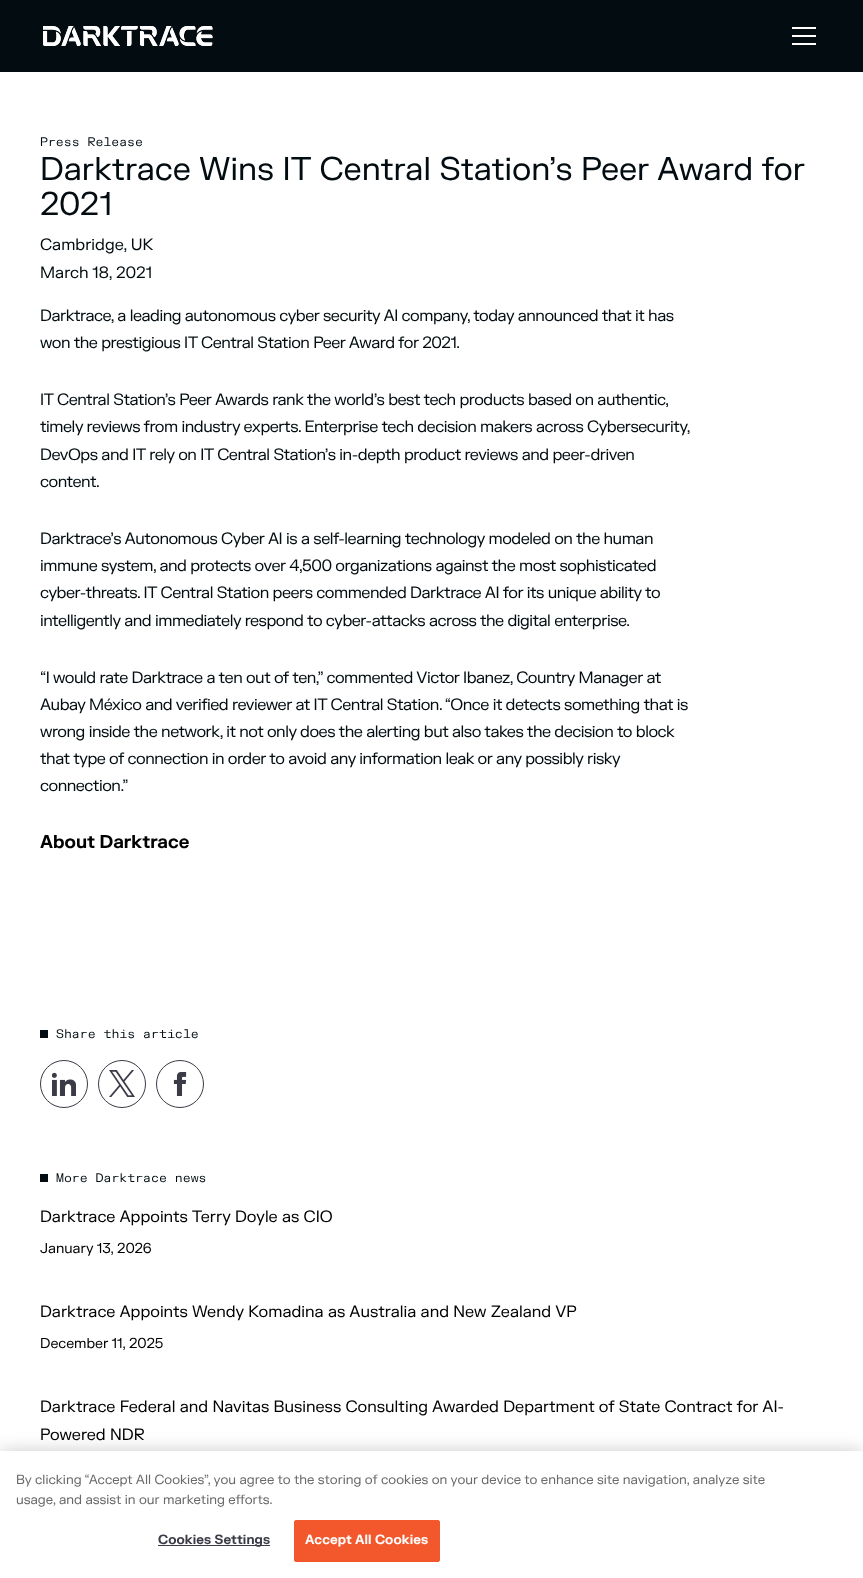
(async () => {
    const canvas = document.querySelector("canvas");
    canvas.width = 863;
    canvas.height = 1578;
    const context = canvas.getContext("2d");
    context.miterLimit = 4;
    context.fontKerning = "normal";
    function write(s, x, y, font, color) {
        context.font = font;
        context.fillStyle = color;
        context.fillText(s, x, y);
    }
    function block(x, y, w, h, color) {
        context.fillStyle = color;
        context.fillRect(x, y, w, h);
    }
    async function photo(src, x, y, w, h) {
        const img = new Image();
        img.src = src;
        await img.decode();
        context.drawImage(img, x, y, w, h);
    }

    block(0, 0, 863, 1578, "rgb(255, 255, 255)");
    block(0, 0, 863, 72, "rgb(3, 13, 17)");
    await photo("media/1.png", 43, 26, 170, 20);
    block(792, 27, 24, 2, "rgb(255, 255, 255)");
    block(792, 35, 24, 2, "rgb(255, 255, 255)");
    block(792, 43, 24, 2, "rgb(255, 255, 255)");
    write("Press Release", 40, 146, "12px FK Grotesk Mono", "rgb(3, 13, 17)");
    write("Darktrace Wins IT Central Station’s Peer Award for", 40, 180, "32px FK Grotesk", "rgb(3, 13, 17)");
    write("2021", 40, 215, "32px FK Grotesk", "rgb(3, 13, 17)");
    write("Cambridge, UK", 40, 250, "16px FK Grotesk", "rgb(3, 13, 17)");
    write("March 18, 2021", 40, 278, "16px FK Grotesk", "rgb(3, 13, 17)");
    context.letterSpacing = "-0.48px";
    write("Darktrace, a leading autonomous cyber security AI company, today announced that it has", 40, 321, "16px FK Grotesk", "rgb(3, 13, 17)");
    write("won the prestigious IT Central Station Peer Award for 2021.", 40, 348, "16px FK Grotesk", "rgb(3, 13, 17)");
    write("IT Central Station’s Peer Awards rank the world’s best tech products based on authentic,", 40, 405, "16px FK Grotesk", "rgb(3, 13, 17)");
    write("timely reviews from industry experts. Enterprise tech decision makers across Cybersecurity,", 40, 432, "16px FK Grotesk", "rgb(3, 13, 17)");
    write("DevOps and IT rely on IT Central Station’s in-depth product reviews and peer-driven", 40, 460, "16px FK Grotesk", "rgb(3, 13, 17)");
    write("content.", 40, 487, "16px FK Grotesk", "rgb(3, 13, 17)");
    write("Darktrace’s Autonomous Cyber AI is a self-learning technology modeled on the human", 40, 544, "16px FK Grotesk", "rgb(3, 13, 17)");
    write("immune system, and protects over 4,500 organizations against the most sophisticated", 40, 571, "16px FK Grotesk", "rgb(3, 13, 17)");
    write("cyber-threats. IT Central Station peers commended Darktrace AI for its unique ability to", 40, 598, "16px FK Grotesk", "rgb(3, 13, 17)");
    write("intelligently and immediately respond to cyber-attacks across the digital enterprise.", 40, 626, "16px FK Grotesk", "rgb(3, 13, 17)");
    write("“I would rate Darktrace a ten out of ten,” commented Victor Ibanez, Country Manager at", 40, 683, "16px FK Grotesk", "rgb(3, 13, 17)");
    write("Aubay México and verified reviewer at IT Central Station. “Once it detects something that is", 40, 710, "16px FK Grotesk", "rgb(3, 13, 17)");
    write("wrong inside the network, it not only does the alerting but also takes the decision to block", 40, 737, "16px FK Grotesk", "rgb(3, 13, 17)");
    write("that type of connection in order to avoid any information leak or any possibly risky", 40, 764, "16px FK Grotesk", "rgb(3, 13, 17)");
    write("connection.”", 40, 791, "16px FK Grotesk", "rgb(3, 13, 17)");
    context.letterSpacing = "0px";
    write("About Darktrace", 40, 848, "bold 18px FK Grotesk", "rgb(0, 0, 0)");
    block(40, 1030, 8, 8, "rgb(3, 13, 17)");
    write("Share this article", 56, 1038, "12px FK Grotesk Mono", "rgb(3, 13, 17)");
    context.beginPath();
    context.arc(64, 1084, 23.5, 0, Math.PI * 2);
    context.strokeStyle = "rgb(59, 59, 72)";
    context.stroke();
    await photo("media/2.png", 52, 1072, 24, 24);
    context.beginPath();
    context.arc(122, 1084, 23.5, 0, Math.PI * 2);
    context.stroke();
    await photo("media/3.png", 109, 1070, 26, 27);
    context.beginPath();
    context.arc(180, 1084, 23.5, 0, Math.PI * 2);
    context.stroke();
    await photo("media/4.png", 173, 1072, 14, 24);
    block(40, 1174, 8, 8, "rgb(3, 13, 17)");
    write("More Darktrace news", 56, 1182, "12px FK Grotesk Mono", "rgb(3, 13, 17)");
    write("Darktrace Appoints Terry Doyle as CIO", 40, 1222, "16px FK Grotesk", "rgb(0, 0, 0)");
    write("January 13, 2026", 40, 1253, "14px FK Grotesk", "rgb(0, 0, 0)");
    write("Darktrace Appoints Wendy Komadina as Australia and New Zealand VP", 40, 1317, "16px FK Grotesk", "rgb(0, 0, 0)");
    write("December 11, 2025", 40, 1348, "14px FK Grotesk", "rgb(0, 0, 0)");
    write("Darktrace Federal and Navitas Business Consulting Awarded Department of State Contract for AI-", 40, 1412, "16px FK Grotesk", "rgb(0, 0, 0)");
    write("Powered NDR", 40, 1440, "16px FK Grotesk", "rgb(0, 0, 0)");
    context.fillStyle = "rgba(0, 0, 0, 0.2)";
    context.filter = "blur(9px)";
    context.beginPath();
    context.rect(0, 1451, 863, 127);
    context.fill();
    context.filter = "none";
    block(0, 1451, 863, 127, "rgb(255, 255, 255)");
    write("By clicking “Accept All Cookies”, you agree to the storing of cookies on your device to enhance site navigation, analyze site", 16, 1484, "13px FK Grotesk", "rgb(105, 105, 105)");
    write("usage, and assist in our marketing efforts.", 16, 1504, "13px FK Grotesk", "rgb(105, 105, 105)");
    block(158, 1545, 112, 1, "rgb(59, 59, 72)");
    context.letterSpacing = "0.1px";
    write("Cookies Settings", 158, 1544, "bold 13px FK Grotesk", "rgb(59, 59, 72)");
    context.fillStyle = "rgb(242, 88, 44)";
    context.beginPath();
    context.roundRect(294.5, 1520.5, 145, 41, 1.5);
    context.fill();
    context.strokeStyle = "rgb(242, 88, 44)";
    context.stroke();
    write("Accept All Cookies", 305, 1544, "bold 13px FK Grotesk", "rgb(255, 255, 255)");
})();
